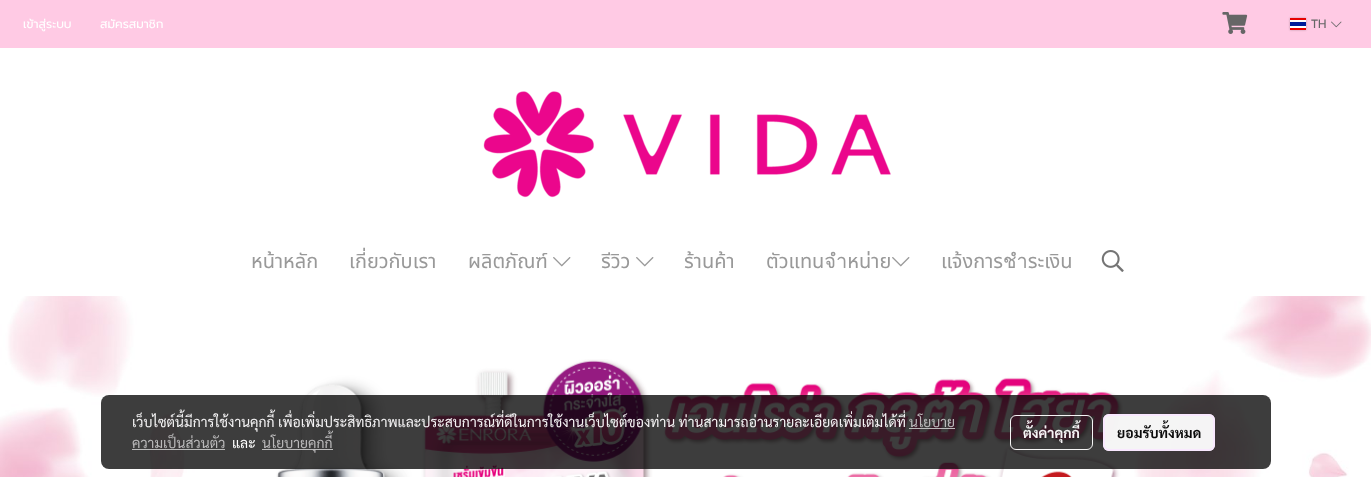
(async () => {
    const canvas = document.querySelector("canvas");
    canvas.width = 1371;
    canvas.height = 477;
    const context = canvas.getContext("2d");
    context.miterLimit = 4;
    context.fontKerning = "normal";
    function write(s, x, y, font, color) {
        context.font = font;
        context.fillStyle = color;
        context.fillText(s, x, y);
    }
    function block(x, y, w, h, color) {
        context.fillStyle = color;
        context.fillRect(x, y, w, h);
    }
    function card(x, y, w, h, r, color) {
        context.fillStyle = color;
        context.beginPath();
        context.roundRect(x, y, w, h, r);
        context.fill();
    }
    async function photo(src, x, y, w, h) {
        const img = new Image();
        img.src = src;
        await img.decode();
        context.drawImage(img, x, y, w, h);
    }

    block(0, 0, 1371, 477, "rgb(255, 255, 255)");
    await photo("media/1.png", 0, 296, 1371, 181);
    block(0, 0, 1371, 48, "rgb(255, 202, 228)");
    write("เข้าสู่ระบบ", 23, 28, "12px Prompt", "rgb(255, 255, 255)");
    write("สมัครสมาชิก", 100, 28, "12px Prompt", "rgb(255, 255, 255)");
    await photo("media/2.png", 1222, 12, 26, 22);
    context.fillStyle = "rgba(0, 0, 0, 0.25)";
    context.filter = "blur(1px)";
    context.beginPath();
    context.rect(1290, 18, 16, 12);
    context.fill();
    context.filter = "none";
    await photo("media/3.png", 1290, 18, 16, 12);
    write("TH", 1311, 28, "12px Prompt", "rgb(102, 102, 102)");
    await photo("media/4.png", 1331, 21, 11, 7);
    await photo("media/5.png", 483, 91, 408, 107);
    write("หน้าหลัก", 251, 268, "20px Noto Sans Thai", "rgb(153, 153, 153)");
    write("เกี่ยวกับเรา", 349, 268, "20px Noto Sans Thai", "rgb(153, 153, 153)");
    write("ผลิตภัณฑ์", 468, 268, "20px Noto Sans Thai", "rgb(153, 153, 153)");
    await photo("media/6.png", 553, 257, 18, 10);
    write("รีวิว", 601, 268, "20px Noto Sans Thai", "rgb(153, 153, 153)");
    await photo("media/6.png", 636, 257, 18, 10);
    write("ร้านค้า", 684, 268, "20px Noto Sans Thai", "rgb(153, 153, 153)");
    write("ตัวแทนจำหน่าย", 766, 268, "20px Noto Sans Thai", "rgb(153, 153, 153)");
    await photo("media/6.png", 892, 257, 18, 10);
    write("แจ้งการชำระเงิน", 941, 268, "20px Noto Sans Thai", "rgb(153, 153, 153)");
    await photo("media/7.png", 1101, 250, 23, 22);
    await photo("media/8.png", 276, 359, 847, 118);
    card(101, 395, 1170, 74, 8, "rgba(0, 0, 0, 0.76)");
    write("เว็บไซต์นี้มีการใช้งานคุกกี้ เพื่อเพิ่มประสิทธิภาพและประสบการณ์ที่ดีในการใช้งานเว็บไซต์ของท่าน ท่านสามารถอ่านรายละเอียดเพิ่มเติมได้ที่", 132, 427, "14px Sarabun", "rgb(245, 244, 245)");
    write("นโยบาย", 909, 427, "14px Sarabun", "rgb(187, 186, 187)");
    block(909, 428, 46, 1, "rgba(194, 194, 194, 0.95)");
    write("ความเป็นส่วนตัว", 132, 448, "14px Sarabun", "rgb(187, 186, 187)");
    block(132, 449, 93, 1, "rgba(194, 194, 194, 0.95)");
    write("และ", 232, 448, "14px Sarabun", "rgb(255, 255, 255)");
    block(262, 449, 71, 1, "rgba(194, 194, 194, 0.95)");
    write("นโยบายคุกกี้", 262, 448, "14px Sarabun", "rgb(187, 186, 187)");
    context.beginPath();
    context.roundRect(1010.5, 415.5, 82, 34, 5.5);
    context.strokeStyle = "rgba(255, 255, 255, 0.95)";
    context.stroke();
    write("ตั้งค่าคุกกี้", 1023, 438, "bold 14px Sarabun", "rgb(245, 244, 245)");
    card(1103, 414, 112, 37, 6, "rgba(255, 255, 255, 0.95)");
    context.beginPath();
    context.roundRect(1104, 415, 110, 35, 5);
    context.strokeStyle = "rgba(249, 231, 255, 0.95)";
    context.lineWidth = 2;
    context.stroke();
    write("ยอมรับทั้งหมด", 1117, 438, "bold 14px Sarabun", "rgb(12, 12, 12)");
})();
